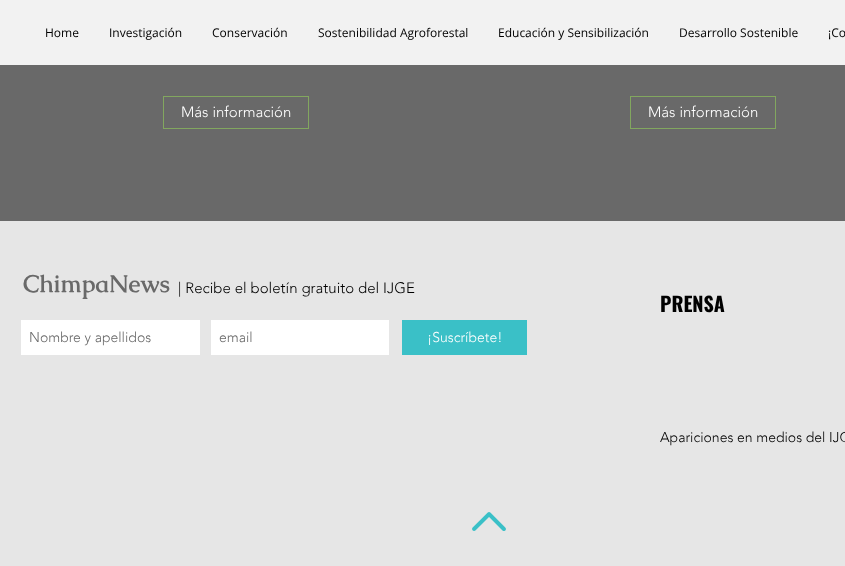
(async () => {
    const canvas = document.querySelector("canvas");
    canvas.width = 845;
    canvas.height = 566;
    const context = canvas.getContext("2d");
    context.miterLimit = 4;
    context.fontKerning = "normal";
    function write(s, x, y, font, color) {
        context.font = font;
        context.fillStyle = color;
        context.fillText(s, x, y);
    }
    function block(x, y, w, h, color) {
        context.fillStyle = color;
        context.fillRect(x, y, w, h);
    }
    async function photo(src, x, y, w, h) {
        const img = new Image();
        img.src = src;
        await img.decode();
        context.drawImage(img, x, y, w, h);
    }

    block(0, 0, 845, 566, "rgb(105, 105, 105)");
    block(0, 0, 845, 65, "rgb(242, 242, 242)");
    write("Home", 45, 37, "12px Open Sans", "rgb(0, 0, 0)");
    write("Investigación", 109, 37, "12px Open Sans", "rgb(0, 0, 0)");
    write("Conservación", 212, 37, "12px Open Sans", "rgb(0, 0, 0)");
    write("Sostenibilidad Agroforestal", 318, 37, "12px Open Sans", "rgb(0, 0, 0)");
    write("Educación y Sensibilización", 498, 37, "12px Open Sans", "rgb(0, 0, 0)");
    write("Desarrollo Sostenible", 679, 37, "12px Open Sans", "rgb(0, 0, 0)");
    write("¡Co", 828, 37, "12px Open Sans", "rgb(0, 0, 0)");
    context.strokeStyle = "rgb(130, 167, 95)";
    context.strokeRect(163.5, 96.5, 145, 32);
    write("Más información", 181, 117, "300 15px 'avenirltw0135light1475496'", "rgb(255, 255, 255)");
    context.strokeRect(630.5, 96.5, 145, 32);
    write("Más información", 648, 117, "300 15px 'avenirltw0135light1475496'", "rgb(255, 255, 255)");
    block(0, 221, 845, 345, "rgb(230, 230, 230)");
    write("ChimpaNews", 23, 292, "bold 24px Caudex", "rgb(105, 105, 105)");
    write("| Recibe el boletín gratuito del IJGE", 178, 293, "300 15px 'avenirltw0135light1475496'", "rgb(0, 0, 0)");
    block(21, 320, 179, 35, "rgb(255, 255, 255)");
    write("Nombre y apellidos", 29, 342, "300 14px 'avenirltw0135light1475496'", "rgb(105, 105, 105)");
    block(211, 320, 178, 35, "rgb(255, 255, 255)");
    write("email", 219, 342, "300 14px 'avenirltw0135light1475496'", "rgb(105, 105, 105)");
    block(402, 320, 125, 35, "rgb(58, 192, 199)");
    write("¡Suscríbete!", 427, 342, "300 14px 'avenirltw0135light1475496'", "rgb(255, 255, 255)");
    write("PRENSA", 660, 312, "bold 20px Oswald", "rgb(0, 0, 0)");
    write("Apariciones en medios del IJG", 660, 442, "300 14px 'avenirltw0135light1475496'", "rgb(0, 0, 0)");
    await photo("media/1.png", 472, 512, 34, 19);
})();
